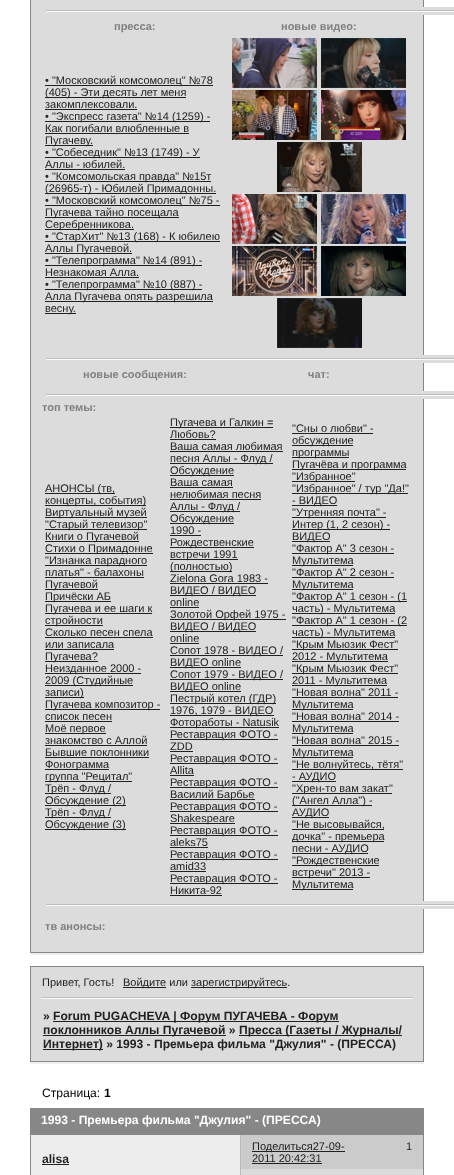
(async () => {
    const canvas = document.querySelector("canvas");
    canvas.width = 454;
    canvas.height = 1175;
    const context = canvas.getContext("2d");
    context.miterLimit = 4;
    context.fontKerning = "normal";
    function write(s, x, y, font, color) {
        context.font = font;
        context.fillStyle = color;
        context.fillText(s, x, y);
    }
    function block(x, y, w, h, color) {
        context.fillStyle = color;
        context.fillRect(x, y, w, h);
    }
    async function photo(src, x, y, w, h) {
        const img = new Image();
        img.src = src;
        await img.decode();
        context.drawImage(img, x, y, w, h);
    }

    block(0, 0, 454, 1175, "rgb(255, 255, 255)");
    block(30, 953, 394, 2, "rgb(239, 239, 239)");
    context.fillStyle = "rgb(220, 220, 220)";
    context.beginPath();
    context.rect(30.5, -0.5, 393, 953);
    context.fill();
    context.strokeStyle = "rgb(135, 135, 135)";
    context.stroke();
    await photo("media/1.png", 46, 7, 408, 8);
    write("пресса:", 114, 30, "bold 11px Liberation Sans", "rgb(128, 128, 128)");
    write("новые видео:", 281, 30, "bold 11px Liberation Sans", "rgb(128, 128, 128)");
    block(45, 85, 168, 1, "rgb(33, 33, 33)");
    write("• \"Московский комсомолец\" №78", 45, 84, "11px Liberation Sans", "rgb(33, 33, 33)");
    block(45, 97, 141, 1, "rgb(33, 33, 33)");
    write("(405) - Эти десять лет меня", 45, 96, "11px Liberation Sans", "rgb(33, 33, 33)");
    write("закомплексовали.", 45, 108, "11px Liberation Sans", "rgb(33, 33, 33)");
    block(45, 109, 92, 1, "rgb(33, 33, 33)");
    block(45, 121, 165, 1, "rgb(33, 33, 33)");
    write("• \"Экспресс газета\" №14 (1259) -", 45, 120, "11px Liberation Sans", "rgb(33, 33, 33)");
    write("Как погибали влюбленные в", 45, 132, "11px Liberation Sans", "rgb(33, 33, 33)");
    block(45, 133, 144, 1, "rgb(33, 33, 33)");
    block(45, 145, 48, 1, "rgb(33, 33, 33)");
    write("Пугачеву.", 45, 144, "11px Liberation Sans", "rgb(33, 33, 33)");
    block(45, 157, 155, 1, "rgb(33, 33, 33)");
    write("• \"Собеседник\" №13 (1749) - У", 45, 156, "11px Liberation Sans", "rgb(33, 33, 33)");
    write("Аллы - юбилей.", 45, 168, "11px Liberation Sans", "rgb(33, 33, 33)");
    block(45, 169, 80, 1, "rgb(33, 33, 33)");
    block(45, 181, 166, 1, "rgb(33, 33, 33)");
    write("• \"Комсомольская правда\" №15т", 45, 180, "11px Liberation Sans", "rgb(33, 33, 33)");
    block(45, 193, 171, 1, "rgb(33, 33, 33)");
    write("(26965-т) - Юбилей Примадонны.", 45, 192, "11px Liberation Sans", "rgb(33, 33, 33)");
    block(45, 205, 175, 1, "rgb(33, 33, 33)");
    write("• \"Московский комсомолец\" №75 -", 45, 204, "11px Liberation Sans", "rgb(33, 33, 33)");
    block(45, 217, 134, 1, "rgb(33, 33, 33)");
    write("Пугачева тайно посещала", 45, 216, "11px Liberation Sans", "rgb(33, 33, 33)");
    block(45, 229, 89, 1, "rgb(33, 33, 33)");
    write("Серебренникова.", 45, 228, "11px Liberation Sans", "rgb(33, 33, 33)");
    block(45, 241, 175, 1, "rgb(33, 33, 33)");
    write("• \"СтарХит\" №13 (168) - К юбилею", 45, 240, "11px Liberation Sans", "rgb(33, 33, 33)");
    block(45, 253, 87, 1, "rgb(33, 33, 33)");
    write("Аллы Пугачевой.", 45, 252, "11px Liberation Sans", "rgb(33, 33, 33)");
    block(45, 265, 157, 1, "rgb(33, 33, 33)");
    write("• \"Телепрограмма\" №14 (891) -", 45, 264, "11px Liberation Sans", "rgb(33, 33, 33)");
    write("Незнакомая Алла.", 45, 276, "11px Liberation Sans", "rgb(33, 33, 33)");
    block(45, 277, 94, 1, "rgb(33, 33, 33)");
    block(45, 289, 157, 1, "rgb(33, 33, 33)");
    write("• \"Телепрограмма\" №10 (887) -", 45, 288, "11px Liberation Sans", "rgb(33, 33, 33)");
    block(45, 301, 168, 1, "rgb(33, 33, 33)");
    write("Алла Пугачева опять разрешила", 45, 300, "11px Liberation Sans", "rgb(33, 33, 33)");
    block(45, 313, 31, 1, "rgb(33, 33, 33)");
    write("весну.", 45, 312, "11px Liberation Sans", "rgb(33, 33, 33)");
    await photo("media/2.png", 232, 38, 85, 50);
    await photo("media/3.png", 321, 38, 85, 50);
    await photo("media/4.png", 232, 90, 85, 50);
    await photo("media/5.png", 321, 90, 85, 50);
    await photo("media/6.png", 277, 142, 85, 50);
    await photo("media/7.png", 232, 194, 85, 50);
    await photo("media/8.png", 321, 194, 85, 50);
    await photo("media/9.png", 232, 246, 85, 50);
    await photo("media/10.png", 321, 246, 85, 50);
    await photo("media/11.png", 277, 298, 85, 50);
    await photo("media/1.png", 46, 355, 408, 8);
    write("новые сообщения:", 83, 378, "bold 11px Liberation Sans", "rgb(128, 128, 128)");
    write("чат:", 308, 378, "bold 11px Liberation Sans", "rgb(128, 128, 128)");
    await photo("media/1.png", 46, 391, 408, 8);
    write("топ темы:", 42, 411, "bold 11px Liberation Sans", "rgb(128, 128, 128)");
    block(45, 493, 70, 1, "rgb(33, 33, 33)");
    write("АНОНСЫ (тв,", 45, 492, "11px Liberation Sans", "rgb(33, 33, 33)");
    block(45, 505, 101, 1, "rgb(33, 33, 33)");
    write("концерты, события)", 45, 504, "11px Liberation Sans", "rgb(33, 33, 33)");
    block(45, 517, 102, 1, "rgb(33, 33, 33)");
    write("Виртуальный музей", 45, 516, "11px Liberation Sans", "rgb(33, 33, 33)");
    block(45, 529, 102, 1, "rgb(33, 33, 33)");
    write("\"Старый телевизор\"", 45, 528, "11px Liberation Sans", "rgb(33, 33, 33)");
    block(45, 541, 94, 1, "rgb(33, 33, 33)");
    write("Книги о Пугачевой", 45, 540, "11px Liberation Sans", "rgb(33, 33, 33)");
    block(45, 553, 108, 1, "rgb(33, 33, 33)");
    write("Стихи о Примадонне", 45, 552, "11px Liberation Sans", "rgb(33, 33, 33)");
    block(45, 565, 102, 1, "rgb(33, 33, 33)");
    write("\"Изнанка парадного", 45, 564, "11px Liberation Sans", "rgb(33, 33, 33)");
    write("платья\" - балахоны", 45, 576, "11px Liberation Sans", "rgb(33, 33, 33)");
    block(45, 577, 99, 1, "rgb(33, 33, 33)");
    block(45, 589, 53, 1, "rgb(33, 33, 33)");
    write("Пугачевой", 45, 588, "11px Liberation Sans", "rgb(33, 33, 33)");
    block(45, 601, 66, 1, "rgb(33, 33, 33)");
    write("Причёски АБ", 45, 600, "11px Liberation Sans", "rgb(33, 33, 33)");
    block(45, 613, 107, 1, "rgb(33, 33, 33)");
    write("Пугачева и ее шаги к", 45, 612, "11px Liberation Sans", "rgb(33, 33, 33)");
    block(45, 625, 58, 1, "rgb(33, 33, 33)");
    write("стройности", 45, 624, "11px Liberation Sans", "rgb(33, 33, 33)");
    write("Сколько песен спела", 45, 636, "11px Liberation Sans", "rgb(33, 33, 33)");
    block(45, 637, 108, 1, "rgb(33, 33, 33)");
    write("или записала", 45, 648, "11px Liberation Sans", "rgb(33, 33, 33)");
    block(45, 649, 69, 1, "rgb(33, 33, 33)");
    block(45, 661, 53, 1, "rgb(33, 33, 33)");
    write("Пугачева?", 45, 660, "11px Liberation Sans", "rgb(33, 33, 33)");
    block(45, 673, 96, 1, "rgb(33, 33, 33)");
    write("Неизданное 2000 -", 45, 672, "11px Liberation Sans", "rgb(33, 33, 33)");
    block(45, 685, 88, 1, "rgb(33, 33, 33)");
    write("2009 (Студийные", 45, 684, "11px Liberation Sans", "rgb(33, 33, 33)");
    block(45, 697, 39, 1, "rgb(33, 33, 33)");
    write("записи)", 45, 696, "11px Liberation Sans", "rgb(33, 33, 33)");
    block(45, 709, 115, 1, "rgb(33, 33, 33)");
    write("Пугачева композитор -", 45, 708, "11px Liberation Sans", "rgb(33, 33, 33)");
    write("список песен", 45, 720, "11px Liberation Sans", "rgb(33, 33, 33)");
    block(45, 721, 67, 1, "rgb(33, 33, 33)");
    block(45, 733, 61, 1, "rgb(33, 33, 33)");
    write("Моё первое", 45, 732, "11px Liberation Sans", "rgb(33, 33, 33)");
    write("знакомство с Аллой", 45, 744, "11px Liberation Sans", "rgb(33, 33, 33)");
    block(45, 745, 102, 1, "rgb(33, 33, 33)");
    write("Бывшие поклонники", 45, 756, "11px Liberation Sans", "rgb(33, 33, 33)");
    block(45, 757, 104, 1, "rgb(33, 33, 33)");
    block(45, 769, 64, 1, "rgb(33, 33, 33)");
    write("Фонограмма", 45, 768, "11px Liberation Sans", "rgb(33, 33, 33)");
    block(45, 781, 87, 1, "rgb(33, 33, 33)");
    write("группа \"Рецитал\"", 45, 780, "11px Liberation Sans", "rgb(33, 33, 33)");
    block(45, 793, 66, 1, "rgb(33, 33, 33)");
    write("Трёп - Флуд /", 45, 792, "11px Liberation Sans", "rgb(33, 33, 33)");
    block(45, 805, 81, 1, "rgb(33, 33, 33)");
    write("Обсуждение (2)", 45, 804, "11px Liberation Sans", "rgb(33, 33, 33)");
    block(45, 817, 66, 1, "rgb(33, 33, 33)");
    write("Трёп - Флуд /", 45, 816, "11px Liberation Sans", "rgb(33, 33, 33)");
    block(45, 829, 81, 1, "rgb(33, 33, 33)");
    write("Обсуждение (3)", 45, 828, "11px Liberation Sans", "rgb(33, 33, 33)");
    block(170, 427, 103, 1, "rgb(33, 33, 33)");
    write("Пугачева и Галкин =", 170, 426, "11px Liberation Sans", "rgb(33, 33, 33)");
    write("Любовь?", 170, 438, "11px Liberation Sans", "rgb(33, 33, 33)");
    block(170, 439, 46, 1, "rgb(33, 33, 33)");
    write("Ваша самая любимая", 170, 450, "11px Liberation Sans", "rgb(33, 33, 33)");
    block(170, 451, 113, 1, "rgb(33, 33, 33)");
    block(170, 463, 103, 1, "rgb(33, 33, 33)");
    write("песня Аллы - Флуд /", 170, 462, "11px Liberation Sans", "rgb(33, 33, 33)");
    block(170, 475, 64, 1, "rgb(33, 33, 33)");
    write("Обсуждение", 170, 474, "11px Liberation Sans", "rgb(33, 33, 33)");
    write("Ваша самая", 170, 486, "11px Liberation Sans", "rgb(33, 33, 33)");
    block(170, 487, 63, 1, "rgb(33, 33, 33)");
    write("нелюбимая песня", 170, 498, "11px Liberation Sans", "rgb(33, 33, 33)");
    block(170, 499, 91, 1, "rgb(33, 33, 33)");
    block(170, 511, 70, 1, "rgb(33, 33, 33)");
    write("Аллы - Флуд /", 170, 510, "11px Liberation Sans", "rgb(33, 33, 33)");
    block(170, 523, 64, 1, "rgb(33, 33, 33)");
    write("Обсуждение", 170, 522, "11px Liberation Sans", "rgb(33, 33, 33)");
    write("1990 -", 170, 534, "11px Liberation Sans", "rgb(33, 33, 33)");
    block(170, 535, 31, 1, "rgb(33, 33, 33)");
    block(170, 547, 84, 1, "rgb(33, 33, 33)");
    write("Рождественские", 170, 546, "11px Liberation Sans", "rgb(33, 33, 33)");
    block(170, 559, 68, 1, "rgb(33, 33, 33)");
    write("встречи 1991", 170, 558, "11px Liberation Sans", "rgb(33, 33, 33)");
    block(170, 571, 62, 1, "rgb(33, 33, 33)");
    write("(полностью)", 170, 570, "11px Liberation Sans", "rgb(33, 33, 33)");
    write("Zielona Gora 1983 -", 170, 582, "11px Liberation Sans", "rgb(33, 33, 33)");
    block(170, 583, 98, 1, "rgb(33, 33, 33)");
    block(170, 595, 86, 1, "rgb(33, 33, 33)");
    write("ВИДЕО / ВИДЕО", 170, 594, "11px Liberation Sans", "rgb(33, 33, 33)");
    write("online", 170, 606, "11px Liberation Sans", "rgb(33, 33, 33)");
    block(170, 607, 29, 1, "rgb(33, 33, 33)");
    block(170, 619, 116, 1, "rgb(33, 33, 33)");
    write("Золотой Орфей 1975 -", 170, 618, "11px Liberation Sans", "rgb(33, 33, 33)");
    block(170, 631, 86, 1, "rgb(33, 33, 33)");
    write("ВИДЕО / ВИДЕО", 170, 630, "11px Liberation Sans", "rgb(33, 33, 33)");
    write("online", 170, 642, "11px Liberation Sans", "rgb(33, 33, 33)");
    block(170, 643, 29, 1, "rgb(33, 33, 33)");
    block(170, 655, 113, 1, "rgb(33, 33, 33)");
    write("Сопот 1978 - ВИДЕО /", 170, 654, "11px Liberation Sans", "rgb(33, 33, 33)");
    block(170, 667, 71, 1, "rgb(33, 33, 33)");
    write("ВИДЕО online", 170, 666, "11px Liberation Sans", "rgb(33, 33, 33)");
    block(170, 679, 113, 1, "rgb(33, 33, 33)");
    write("Сопот 1979 - ВИДЕО /", 170, 678, "11px Liberation Sans", "rgb(33, 33, 33)");
    block(170, 691, 71, 1, "rgb(33, 33, 33)");
    write("ВИДЕО online", 170, 690, "11px Liberation Sans", "rgb(33, 33, 33)");
    block(170, 703, 106, 1, "rgb(33, 33, 33)");
    write("Пестрый котел (ГДР)", 170, 702, "11px Liberation Sans", "rgb(33, 33, 33)");
    block(170, 715, 104, 1, "rgb(33, 33, 33)");
    write("1976, 1979 - ВИДЕО", 170, 714, "11px Liberation Sans", "rgb(33, 33, 33)");
    block(170, 727, 109, 1, "rgb(33, 33, 33)");
    write("Фотоработы - Natusik", 170, 726, "11px Liberation Sans", "rgb(33, 33, 33)");
    block(170, 739, 108, 1, "rgb(33, 33, 33)");
    write("Реставрация ФОТО -", 170, 738, "11px Liberation Sans", "rgb(33, 33, 33)");
    write("ZDD", 170, 750, "11px Liberation Sans", "rgb(33, 33, 33)");
    block(170, 751, 23, 1, "rgb(33, 33, 33)");
    block(170, 763, 108, 1, "rgb(33, 33, 33)");
    write("Реставрация ФОТО -", 170, 762, "11px Liberation Sans", "rgb(33, 33, 33)");
    write("Allita", 170, 774, "11px Liberation Sans", "rgb(33, 33, 33)");
    block(170, 775, 24, 1, "rgb(33, 33, 33)");
    block(170, 787, 108, 1, "rgb(33, 33, 33)");
    write("Реставрация ФОТО -", 170, 786, "11px Liberation Sans", "rgb(33, 33, 33)");
    block(170, 799, 85, 1, "rgb(33, 33, 33)");
    write("Василий Барбье", 170, 798, "11px Liberation Sans", "rgb(33, 33, 33)");
    block(170, 811, 108, 1, "rgb(33, 33, 33)");
    write("Реставрация ФОТО -", 170, 810, "11px Liberation Sans", "rgb(33, 33, 33)");
    block(170, 823, 65, 1, "rgb(33, 33, 33)");
    write("Shakespeare", 170, 822, "11px Liberation Sans", "rgb(33, 33, 33)");
    block(170, 835, 108, 1, "rgb(33, 33, 33)");
    write("Реставрация ФОТО -", 170, 834, "11px Liberation Sans", "rgb(33, 33, 33)");
    write("aleks75", 170, 846, "11px Liberation Sans", "rgb(33, 33, 33)");
    block(170, 847, 38, 1, "rgb(33, 33, 33)");
    block(170, 859, 108, 1, "rgb(33, 33, 33)");
    write("Реставрация ФОТО -", 170, 858, "11px Liberation Sans", "rgb(33, 33, 33)");
    write("amid33", 170, 870, "11px Liberation Sans", "rgb(33, 33, 33)");
    block(170, 871, 36, 1, "rgb(33, 33, 33)");
    block(170, 883, 108, 1, "rgb(33, 33, 33)");
    write("Реставрация ФОТО -", 170, 882, "11px Liberation Sans", "rgb(33, 33, 33)");
    write("Никита-92", 170, 894, "11px Liberation Sans", "rgb(33, 33, 33)");
    block(170, 895, 52, 1, "rgb(33, 33, 33)");
    write("\"Сны о любви\" -", 292, 432, "11px Liberation Sans", "rgb(33, 33, 33)");
    block(292, 433, 81, 1, "rgb(33, 33, 33)");
    block(292, 445, 61, 1, "rgb(33, 33, 33)");
    write("обсуждение", 292, 444, "11px Liberation Sans", "rgb(33, 33, 33)");
    block(292, 457, 57, 1, "rgb(33, 33, 33)");
    write("программы", 292, 456, "11px Liberation Sans", "rgb(33, 33, 33)");
    block(292, 469, 114, 1, "rgb(33, 33, 33)");
    write("Пугачёва и программа", 292, 468, "11px Liberation Sans", "rgb(33, 33, 33)");
    block(292, 481, 63, 1, "rgb(33, 33, 33)");
    write("\"Избранное\"", 292, 480, "11px Liberation Sans", "rgb(33, 33, 33)");
    block(292, 493, 116, 1, "rgb(33, 33, 33)");
    write("\"Избранное\" / тур \"Да!\"", 292, 492, "11px Liberation Sans", "rgb(33, 33, 33)");
    block(292, 505, 45, 1, "rgb(33, 33, 33)");
    write("- ВИДЕО", 292, 504, "11px Liberation Sans", "rgb(33, 33, 33)");
    block(292, 517, 94, 1, "rgb(33, 33, 33)");
    write("\"Утренняя почта\" -", 292, 516, "11px Liberation Sans", "rgb(33, 33, 33)");
    block(292, 529, 98, 1, "rgb(33, 33, 33)");
    write("Интер (1, 2 сезон) -", 292, 528, "11px Liberation Sans", "rgb(33, 33, 33)");
    block(292, 541, 38, 1, "rgb(33, 33, 33)");
    write("ВИДЕО", 292, 540, "11px Liberation Sans", "rgb(33, 33, 33)");
    block(292, 553, 102, 1, "rgb(33, 33, 33)");
    write("\"Фактор А\" 3 сезон -", 292, 552, "11px Liberation Sans", "rgb(33, 33, 33)");
    block(292, 565, 61, 1, "rgb(33, 33, 33)");
    write("Мультитема", 292, 564, "11px Liberation Sans", "rgb(33, 33, 33)");
    block(292, 577, 102, 1, "rgb(33, 33, 33)");
    write("\"Фактор А\" 2 сезон -", 292, 576, "11px Liberation Sans", "rgb(33, 33, 33)");
    block(292, 589, 61, 1, "rgb(33, 33, 33)");
    write("Мультитема", 292, 588, "11px Liberation Sans", "rgb(33, 33, 33)");
    block(292, 601, 115, 1, "rgb(33, 33, 33)");
    write("\"Фактор А\" 1 сезон - (1", 292, 600, "11px Liberation Sans", "rgb(33, 33, 33)");
    block(292, 613, 103, 1, "rgb(33, 33, 33)");
    write("часть) - Мультитема", 292, 612, "11px Liberation Sans", "rgb(33, 33, 33)");
    block(292, 625, 115, 1, "rgb(33, 33, 33)");
    write("\"Фактор А\" 1 сезон - (2", 292, 624, "11px Liberation Sans", "rgb(33, 33, 33)");
    block(292, 637, 103, 1, "rgb(33, 33, 33)");
    write("часть) - Мультитема", 292, 636, "11px Liberation Sans", "rgb(33, 33, 33)");
    block(292, 649, 106, 1, "rgb(33, 33, 33)");
    write("\"Крым Мьюзик Фест\"", 292, 648, "11px Liberation Sans", "rgb(33, 33, 33)");
    block(292, 661, 96, 1, "rgb(33, 33, 33)");
    write("2012 - Мультитема", 292, 660, "11px Liberation Sans", "rgb(33, 33, 33)");
    block(292, 673, 106, 1, "rgb(33, 33, 33)");
    write("\"Крым Мьюзик Фест\"", 292, 672, "11px Liberation Sans", "rgb(33, 33, 33)");
    block(292, 685, 95, 1, "rgb(33, 33, 33)");
    write("2011 - Мультитема", 292, 684, "11px Liberation Sans", "rgb(33, 33, 33)");
    write("\"Новая волна\" 2011 -", 292, 696, "11px Liberation Sans", "rgb(33, 33, 33)");
    block(292, 697, 106, 1, "rgb(33, 33, 33)");
    block(292, 709, 61, 1, "rgb(33, 33, 33)");
    write("Мультитема", 292, 708, "11px Liberation Sans", "rgb(33, 33, 33)");
    write("\"Новая волна\" 2014 -", 292, 720, "11px Liberation Sans", "rgb(33, 33, 33)");
    block(292, 721, 107, 1, "rgb(33, 33, 33)");
    block(292, 733, 61, 1, "rgb(33, 33, 33)");
    write("Мультитема", 292, 732, "11px Liberation Sans", "rgb(33, 33, 33)");
    write("\"Новая волна\" 2015 -", 292, 744, "11px Liberation Sans", "rgb(33, 33, 33)");
    block(292, 745, 107, 1, "rgb(33, 33, 33)");
    block(292, 757, 61, 1, "rgb(33, 33, 33)");
    write("Мультитема", 292, 756, "11px Liberation Sans", "rgb(33, 33, 33)");
    block(292, 769, 111, 1, "rgb(33, 33, 33)");
    write("\"Не волнуйтесь, тётя\"", 292, 768, "11px Liberation Sans", "rgb(33, 33, 33)");
    block(292, 781, 44, 1, "rgb(33, 33, 33)");
    write("- АУДИО", 292, 780, "11px Liberation Sans", "rgb(33, 33, 33)");
    block(292, 793, 100, 1, "rgb(33, 33, 33)");
    write("\"Хрен-то вам закат\"", 292, 792, "11px Liberation Sans", "rgb(33, 33, 33)");
    block(292, 805, 80, 1, "rgb(33, 33, 33)");
    write("(\"Ангел Алла\") -", 292, 804, "11px Liberation Sans", "rgb(33, 33, 33)");
    block(292, 817, 37, 1, "rgb(33, 33, 33)");
    write("АУДИО", 292, 816, "11px Liberation Sans", "rgb(33, 33, 33)");
    block(292, 829, 92, 1, "rgb(33, 33, 33)");
    write("\"Не высовывайся,", 292, 828, "11px Liberation Sans", "rgb(33, 33, 33)");
    block(292, 841, 92, 1, "rgb(33, 33, 33)");
    write("дочка\" - премьера", 292, 840, "11px Liberation Sans", "rgb(33, 33, 33)");
    block(292, 853, 76, 1, "rgb(33, 33, 33)");
    write("песни - АУДИО", 292, 852, "11px Liberation Sans", "rgb(33, 33, 33)");
    block(292, 865, 87, 1, "rgb(33, 33, 33)");
    write("\"Рождественские", 292, 864, "11px Liberation Sans", "rgb(33, 33, 33)");
    block(292, 877, 78, 1, "rgb(33, 33, 33)");
    write("встречи\" 2013 -", 292, 876, "11px Liberation Sans", "rgb(33, 33, 33)");
    block(292, 889, 61, 1, "rgb(33, 33, 33)");
    write("Мультитема", 292, 888, "11px Liberation Sans", "rgb(33, 33, 33)");
    await photo("media/1.png", 46, 901, 408, 8);
    write("тв анонсы:", 45, 930, "bold 11px Liberation Sans", "rgb(128, 128, 128)");
    block(31, 967, 392, 30, "rgb(220, 220, 220)");
    block(30, 966, 394, 1, "rgb(135, 135, 135)");
    block(423, 966, 1, 33, "rgb(135, 135, 135)");
    block(30, 966, 1, 33, "rgb(135, 135, 135)");
    write("Привет, Гость!", 42, 986, "11px Liberation Sans", "rgb(33, 33, 33)");
    block(123, 987, 43, 1, "rgb(33, 33, 33)");
    write("Войдите или", 123, 986, "11px Liberation Sans", "rgb(33, 33, 33)");
    block(191, 987, 96, 1, "rgb(33, 33, 33)");
    write("зарегистрируйтесь.", 191, 986, "11px Liberation Sans", "rgb(33, 33, 33)");
    block(31, 997, 392, 64, "rgb(220, 220, 220)");
    block(41, 997, 372, 1, "rgb(188, 188, 188)");
    block(41, 998, 372, 1, "rgb(252, 252, 252)");
    block(30, 1062, 394, 2, "rgb(239, 239, 239)");
    block(423, 997, 1, 65, "rgb(135, 135, 135)");
    block(30, 1061, 394, 1, "rgb(135, 135, 135)");
    block(30, 997, 1, 65, "rgb(135, 135, 135)");
    write("»", 43, 1020, "bold 12.1px Liberation Sans", "rgb(33, 33, 33)");
    block(53, 1021, 286, 1, "rgb(33, 33, 33)");
    write("Forum PUGACHEVA | Форум ПУГАЧЕВА - Форум", 53, 1020, "bold 12.1px Liberation Sans", "rgb(33, 33, 33)");
    block(43, 1035, 183, 1, "rgb(33, 33, 33)");
    write("поклонников Аллы Пугачевой »", 43, 1034, "bold 12.1px Liberation Sans", "rgb(33, 33, 33)");
    block(239, 1035, 163, 1, "rgb(33, 33, 33)");
    write("Пресса (Газеты / Журналы/", 239, 1034, "bold 12.1px Liberation Sans", "rgb(33, 33, 33)");
    block(43, 1049, 60, 1, "rgb(33, 33, 33)");
    write("Интернет) » 1993 - Премьера фильма \"Джулия\" - (ПРЕССА)", 43, 1048, "bold 12.1px Liberation Sans", "rgb(33, 33, 33)");
    write("Страница:", 42, 1097, "12.1px Liberation Sans", "rgb(0, 0, 0)");
    write("1", 104, 1097, "bold 12.1px Liberation Sans", "rgb(0, 0, 0)");
    block(30, 1108, 394, 27, "rgb(135, 135, 135)");
    write("1993 - Премьера фильма \"Джулия\" - (ПРЕССА)", 41, 1124, "bold 12.1px Liberation Sans", "rgb(255, 255, 255)");
    block(30, 1134, 1, 36, "rgb(135, 135, 135)");
    block(30, 1169, 210, 6, "rgb(237, 237, 237)");
    block(30, 1169, 1, 6, "rgb(135, 135, 135)");
    block(31, 1135, 209, 34, "rgb(237, 237, 237)");
    write("alisa", 42, 1163, "bold 12.1px Liberation Sans", "rgb(33, 33, 33)");
    block(42, 1164, 27, 1, "rgb(33, 33, 33)");
    block(240, 1135, 1, 35, "rgb(186, 186, 186)");
    block(240, 1169, 183, 6, "rgb(220, 220, 220)");
    block(240, 1169, 1, 6, "rgb(186, 186, 186)");
    block(423, 1134, 1, 41, "rgb(135, 135, 135)");
    block(241, 1135, 182, 34, "rgb(203, 203, 203)");
    block(252, 1151, 93, 1, "rgb(33, 33, 33)");
    write("Поделиться27-09-", 252, 1150, "11px Liberation Sans", "rgb(33, 33, 33)");
    write("1", 406, 1150, "11px Liberation Sans", "rgb(33, 33, 33)");
    write("2011 20:42:31", 252, 1162, "11px Liberation Sans", "rgb(33, 33, 33)");
    block(252, 1163, 70, 1, "rgb(33, 33, 33)");
})();
